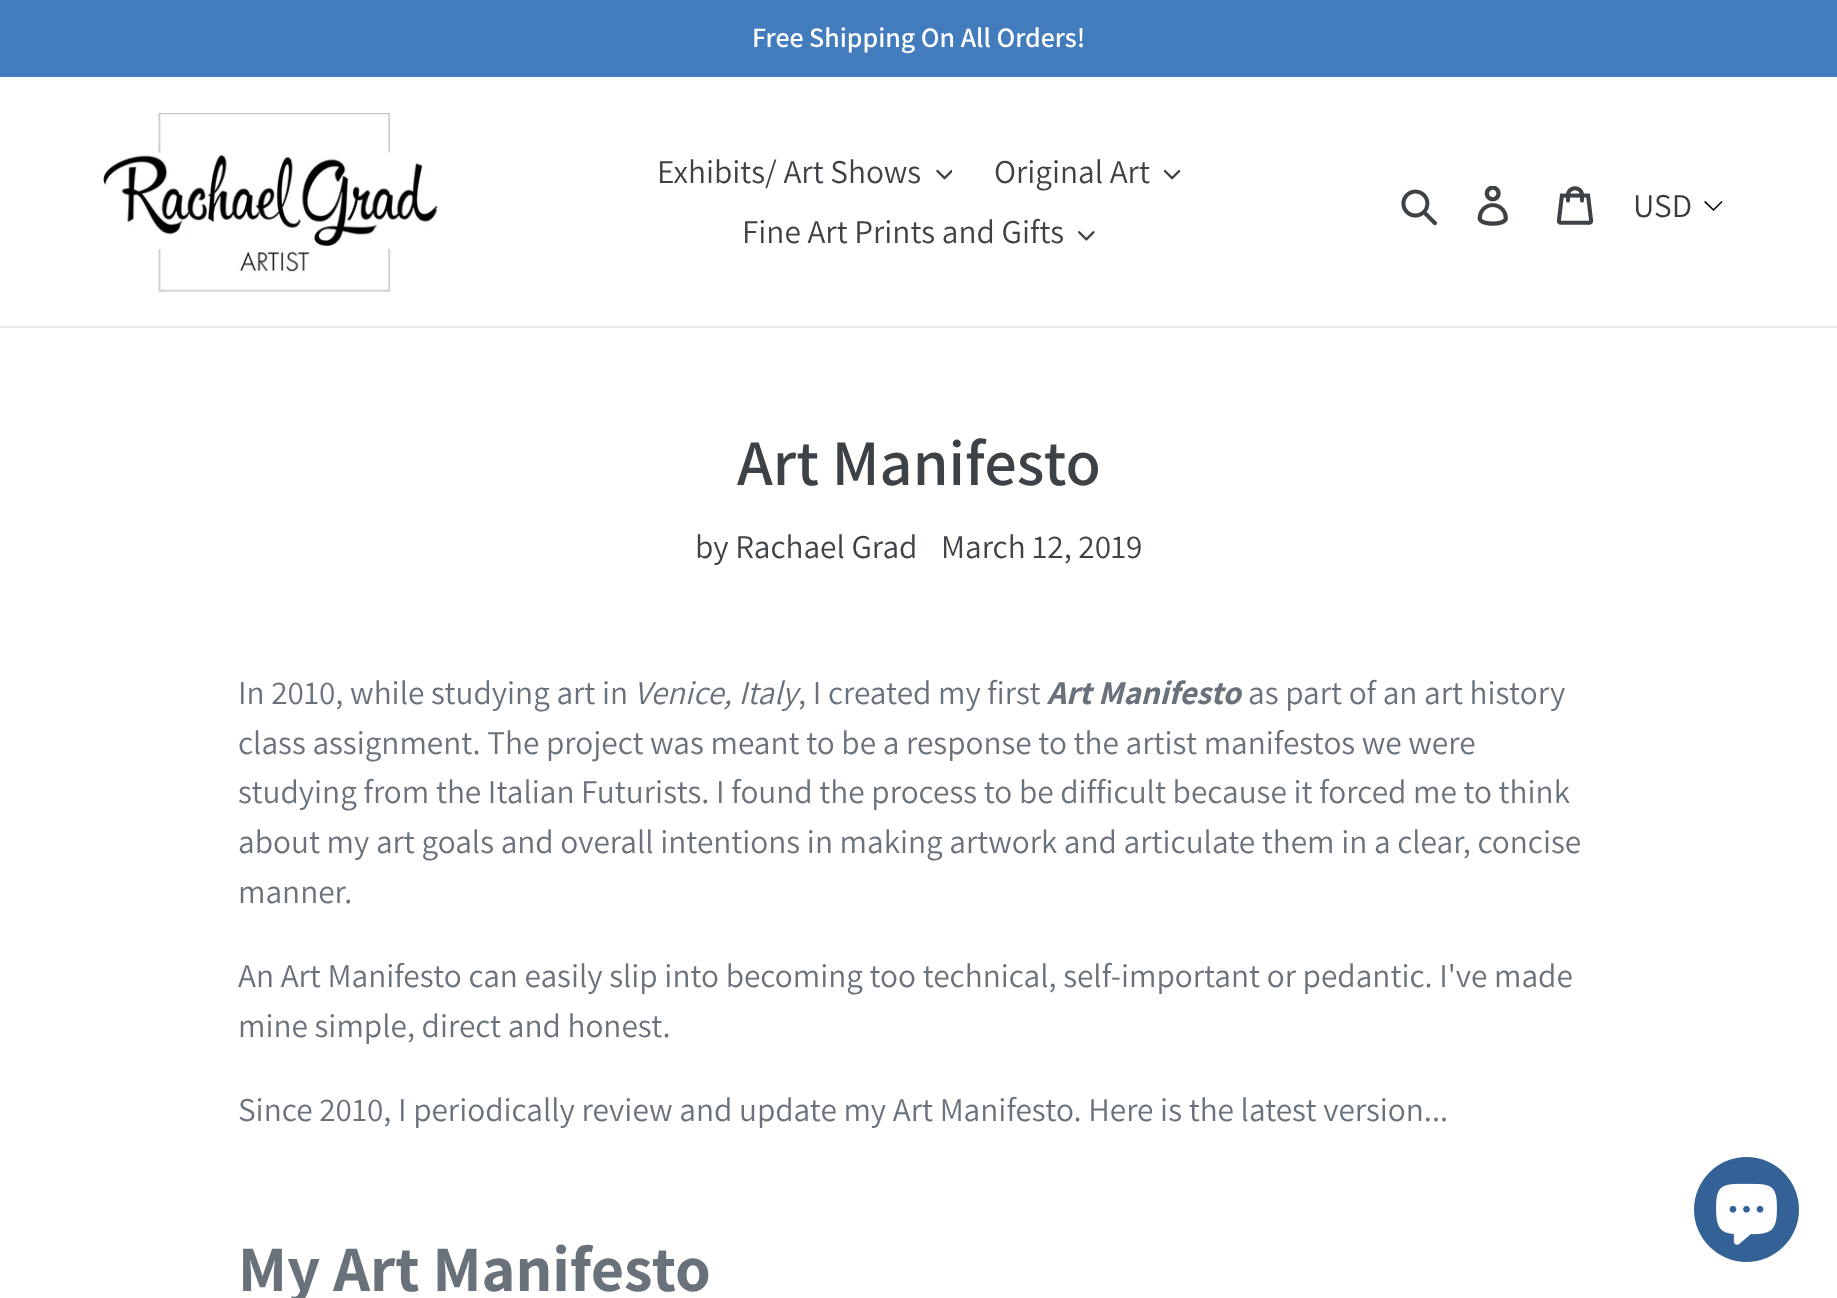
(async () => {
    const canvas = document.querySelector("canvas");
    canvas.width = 1837;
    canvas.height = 1298;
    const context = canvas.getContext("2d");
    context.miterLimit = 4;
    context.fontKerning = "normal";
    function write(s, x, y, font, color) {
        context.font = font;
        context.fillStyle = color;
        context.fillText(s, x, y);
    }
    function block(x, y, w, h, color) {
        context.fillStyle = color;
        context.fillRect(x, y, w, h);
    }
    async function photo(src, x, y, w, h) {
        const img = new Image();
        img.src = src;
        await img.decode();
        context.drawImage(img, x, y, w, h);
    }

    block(0, 0, 1837, 1298, "rgb(255, 255, 255)");
    block(0, 0, 1837, 77, "rgb(66, 124, 189)");
    write("Free Shipping On All Orders!", 752, 47, "600 28px Assistant", "rgb(255, 255, 255)");
    block(0, 326, 1837, 2, "rgb(232, 233, 235)");
    await photo("media/1.png", 101, 113, 337, 179);
    write("Exhibits/ Art Shows", 657, 183, "33.25px Assistant", "rgb(61, 66, 70)");
    await photo("media/2.png", 936, 169, 16, 11);
    write("Original Art", 994, 183, "33.25px Assistant", "rgb(61, 66, 70)");
    await photo("media/3.png", 1164, 169, 16, 11);
    write("Fine Art Prints and Gifts", 742, 243, "33.25px Assistant", "rgb(61, 66, 70)");
    await photo("media/4.png", 1078, 231, 17, 10);
    await photo("media/5.png", 1401, 189, 36, 37);
    await photo("media/6.png", 1477, 186, 31, 40);
    await photo("media/7.png", 1556, 186, 38, 39);
    context.fillStyle = "rgb(0, 0, 0)";
    context.beginPath();
    context.moveTo(1713.5, 211);
    context.lineTo(1704, 202);
    context.lineTo(1705.5, 201);
    context.lineTo(1713.5, 209);
    context.lineTo(1721.5, 201);
    context.lineTo(1722.5, 202);
    context.closePath();
    context.fill();
    write("USD", 1633, 217, "33.25px Assistant", "rgb(58, 58, 58)");
    write("Art Manifesto", 737, 485, "600 64.75px Assistant", "rgb(61, 66, 70)");
    write("by Rachael Grad", 695, 558, "33.25px Assistant", "rgb(61, 66, 70)");
    write("March 12, 2019", 941, 558, "33.25px Assistant", "rgb(61, 66, 70)");
    write("In 2010, while studying art in", 238, 704, "33.25px Assistant", "rgb(105, 114, 123)");
    write("Venice, Italy", 634, 704, "italic 33.25px Assistant", "rgb(105, 114, 123)");
    write(", I created my first", 798, 704, "33.25px Assistant", "rgb(105, 114, 123)");
    write("Art Manifesto", 1047, 704, "italic bold 33.25px Assistant", "rgb(105, 114, 123)");
    write("as part of an art history", 1248, 704, "33.25px Assistant", "rgb(105, 114, 123)");
    write("class assignment. The project was meant to be a response to the artist manifestos we were", 238, 754, "33.25px Assistant", "rgb(105, 114, 123)");
    write("studying from the Italian Futurists. I found the process to be difficult because it forced me to think", 238, 803, "33.25px Assistant", "rgb(105, 114, 123)");
    write("about my art goals and overall intentions in making artwork and articulate them in a clear, concise", 238, 853, "33.25px Assistant", "rgb(105, 114, 123)");
    write("manner.", 238, 903, "33.25px Assistant", "rgb(105, 114, 123)");
    write("An Art Manifesto can easily slip into becoming too technical, self-important or pedantic. I've made", 238, 987, "33.25px Assistant", "rgb(105, 114, 123)");
    write("mine simple, direct and honest.", 238, 1037, "33.25px Assistant", "rgb(105, 114, 123)");
    write("Since 2010, I periodically review and update my Art Manifesto. Here is the latest version...", 238, 1121, "33.25px Assistant", "rgb(105, 114, 123)");
    write("My Art Manifesto", 238, 1291, "bold 64.75px Assistant", "rgb(105, 114, 123)");
    context.fillStyle = "rgb(52, 98, 150)";
    context.beginPath();
    context.arc(1746.5, 1209.5, 52.5, 0, Math.PI * 2);
    context.fill();
    await photo("media/8.png", 1716, 1183, 61, 62);
})();
